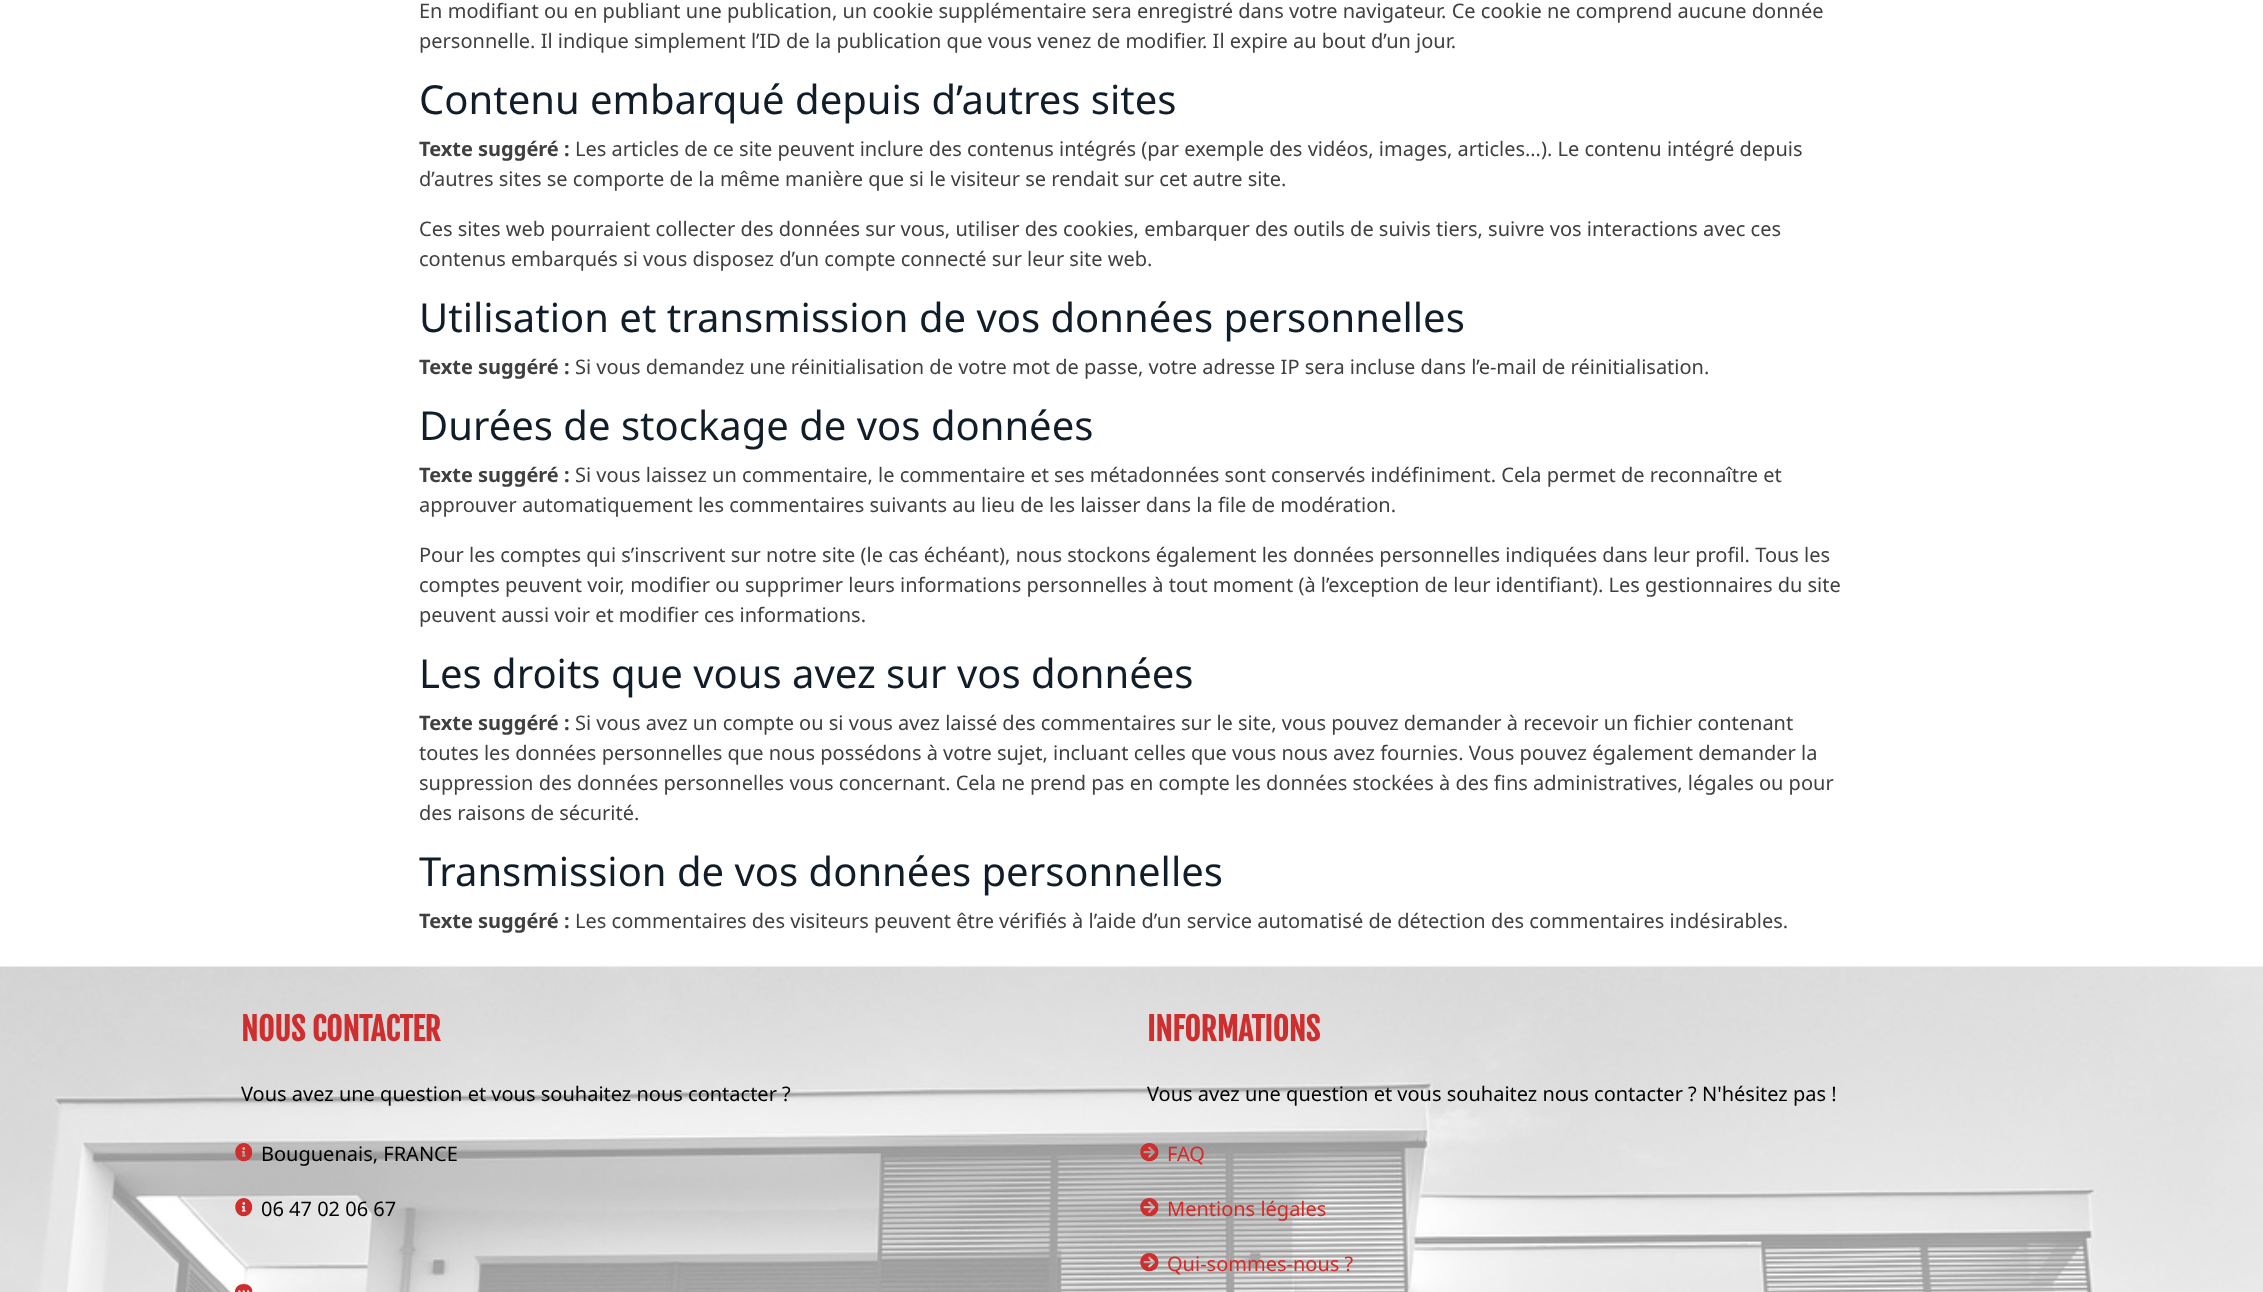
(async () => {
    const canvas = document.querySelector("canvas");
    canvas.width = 2263;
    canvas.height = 1292;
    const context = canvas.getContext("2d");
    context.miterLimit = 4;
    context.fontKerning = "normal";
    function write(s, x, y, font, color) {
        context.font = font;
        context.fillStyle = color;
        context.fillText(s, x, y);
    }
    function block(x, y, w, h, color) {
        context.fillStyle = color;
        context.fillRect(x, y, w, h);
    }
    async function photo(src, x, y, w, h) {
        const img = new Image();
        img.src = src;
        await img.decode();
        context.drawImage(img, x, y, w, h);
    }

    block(0, 0, 2263, 1292, "rgb(255, 255, 255)");
    write("En modifiant ou en publiant une publication, un cookie supplémentaire sera enregistré dans votre navigateur. Ce cookie ne comprend aucune donnée", 419, 18, "20px Noto Sans", "rgb(64, 64, 64)");
    write("personnelle. Il indique simplement l’ID de la publication que vous venez de modifier. Il expire au bout d’un jour.", 419, 48, "20px Noto Sans", "rgb(64, 64, 64)");
    write("Contenu embarqué depuis d’autres sites", 419, 114, "40px Noto Sans", "rgb(17, 29, 40)");
    write("Texte suggéré :", 419, 156, "bold 20px Noto Sans", "rgb(64, 64, 64)");
    write("Les articles de ce site peuvent inclure des contenus intégrés (par exemple des vidéos, images, articles…). Le contenu intégré depuis", 575, 156, "20px Noto Sans", "rgb(64, 64, 64)");
    write("d’autres sites se comporte de la même manière que si le visiteur se rendait sur cet autre site.", 419, 186, "20px Noto Sans", "rgb(64, 64, 64)");
    write("Ces sites web pourraient collecter des données sur vous, utiliser des cookies, embarquer des outils de suivis tiers, suivre vos interactions avec ces", 419, 236, "20px Noto Sans", "rgb(64, 64, 64)");
    write("contenus embarqués si vous disposez d’un compte connecté sur leur site web.", 419, 266, "20px Noto Sans", "rgb(64, 64, 64)");
    write("Utilisation et transmission de vos données personnelles", 419, 332, "40px Noto Sans", "rgb(17, 29, 40)");
    write("Texte suggéré :", 419, 374, "bold 20px Noto Sans", "rgb(64, 64, 64)");
    write("Si vous demandez une réinitialisation de votre mot de passe, votre adresse IP sera incluse dans l’e-mail de réinitialisation.", 575, 374, "20px Noto Sans", "rgb(64, 64, 64)");
    write("Durées de stockage de vos données", 419, 440, "40px Noto Sans", "rgb(17, 29, 40)");
    write("Texte suggéré :", 419, 482, "bold 20px Noto Sans", "rgb(64, 64, 64)");
    write("Si vous laissez un commentaire, le commentaire et ses métadonnées sont conservés indéfiniment. Cela permet de reconnaître et", 575, 482, "20px Noto Sans", "rgb(64, 64, 64)");
    write("approuver automatiquement les commentaires suivants au lieu de les laisser dans la file de modération.", 419, 512, "20px Noto Sans", "rgb(64, 64, 64)");
    write("Pour les comptes qui s’inscrivent sur notre site (le cas échéant), nous stockons également les données personnelles indiquées dans leur profil. Tous les", 419, 562, "20px Noto Sans", "rgb(64, 64, 64)");
    write("comptes peuvent voir, modifier ou supprimer leurs informations personnelles à tout moment (à l’exception de leur identifiant). Les gestionnaires du site", 419, 592, "20px Noto Sans", "rgb(64, 64, 64)");
    write("peuvent aussi voir et modifier ces informations.", 419, 622, "20px Noto Sans", "rgb(64, 64, 64)");
    write("Les droits que vous avez sur vos données", 419, 688, "40px Noto Sans", "rgb(17, 29, 40)");
    write("Texte suggéré :", 419, 730, "bold 20px Noto Sans", "rgb(64, 64, 64)");
    write("Si vous avez un compte ou si vous avez laissé des commentaires sur le site, vous pouvez demander à recevoir un fichier contenant", 575, 730, "20px Noto Sans", "rgb(64, 64, 64)");
    write("toutes les données personnelles que nous possédons à votre sujet, incluant celles que vous nous avez fournies. Vous pouvez également demander la", 419, 760, "20px Noto Sans", "rgb(64, 64, 64)");
    write("suppression des données personnelles vous concernant. Cela ne prend pas en compte les données stockées à des fins administratives, légales ou pour", 419, 790, "20px Noto Sans", "rgb(64, 64, 64)");
    write("des raisons de sécurité.", 419, 820, "20px Noto Sans", "rgb(64, 64, 64)");
    write("Transmission de vos données personnelles", 419, 886, "40px Noto Sans", "rgb(17, 29, 40)");
    write("Texte suggéré :", 419, 928, "bold 20px Noto Sans", "rgb(64, 64, 64)");
    write("Les commentaires des visiteurs peuvent être vérifiés à l’aide d’un service automatisé de détection des commentaires indésirables.", 575, 928, "20px Noto Sans", "rgb(64, 64, 64)");
    await photo("media/1.png", 0, 966, 2263, 326);
    write("NOUS CONTACTER", 241, 1041, "bold 31.25px Fjalla One", "rgb(207, 46, 46)");
    write("Vous avez une question et vous souhaitez nous contacter ?", 241, 1101, "20px Noto Sans", "rgb(0, 0, 0)");
    await photo("media/2.png", 235, 1143, 18, 19);
    write("Bouguenais, FRANCE", 261, 1161, "20px Noto Sans", "rgb(0, 0, 0)");
    await photo("media/3.png", 235, 1198, 18, 19);
    write("06 47 02 06 67", 261, 1216, "20px Noto Sans", "rgb(0, 0, 0)");
    await photo("media/4.png", 235, 1284, 18, 8);
    write("INFORMATIONS", 1147, 1041, "bold 31.25px Fjalla One", "rgb(207, 46, 46)");
    write("Vous avez une question et vous souhaitez nous contacter ? N'hésitez pas !", 1147, 1101, "20px Noto Sans", "rgb(0, 0, 0)");
    await photo("media/5.png", 1140, 1143, 19, 19);
    write("FAQ", 1167, 1161, "20px Noto Sans", "rgb(219, 39, 35)");
    await photo("media/6.png", 1140, 1198, 19, 19);
    write("Mentions légales", 1167, 1216, "20px Noto Sans", "rgb(219, 39, 35)");
    await photo("media/7.png", 1140, 1253, 19, 19);
    write("Qui-sommes-nous ?", 1167, 1271, "20px Noto Sans", "rgb(219, 39, 35)");
})();
